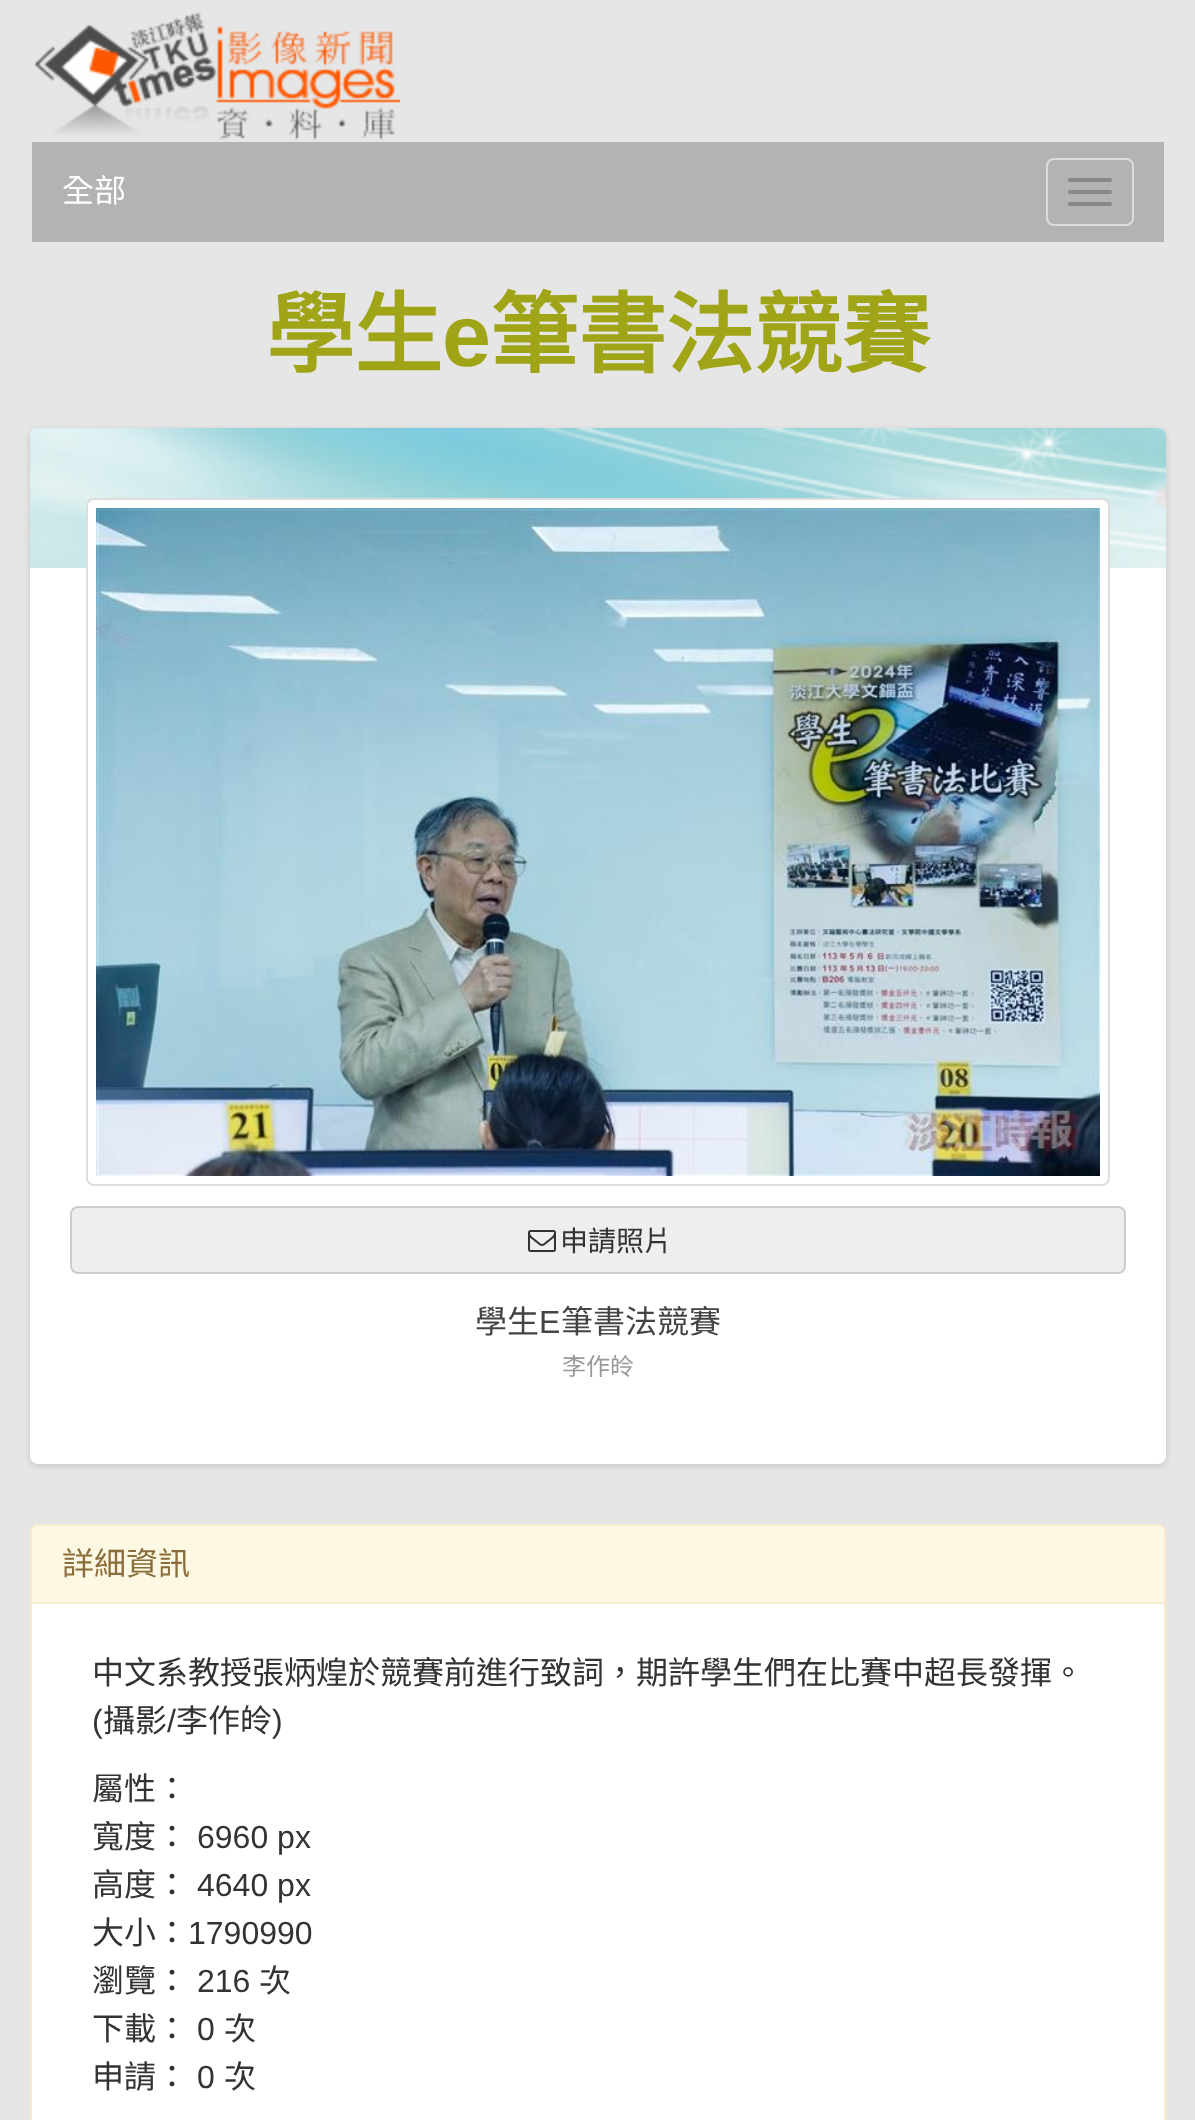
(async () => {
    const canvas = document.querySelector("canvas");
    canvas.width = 1195;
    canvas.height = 2120;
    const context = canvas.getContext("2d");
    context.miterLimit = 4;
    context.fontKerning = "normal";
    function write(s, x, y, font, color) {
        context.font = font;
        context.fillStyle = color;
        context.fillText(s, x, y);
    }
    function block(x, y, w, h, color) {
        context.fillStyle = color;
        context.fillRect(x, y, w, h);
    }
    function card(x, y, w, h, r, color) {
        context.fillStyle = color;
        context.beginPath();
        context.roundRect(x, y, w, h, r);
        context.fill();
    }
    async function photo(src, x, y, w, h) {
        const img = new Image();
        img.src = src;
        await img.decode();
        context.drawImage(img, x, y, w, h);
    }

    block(0, 0, 1195, 2120, "rgb(230, 230, 230)");
    await photo("media/1.png", 33, 11, 367, 129);
    block(32, 142, 1132, 100, "rgb(179, 179, 179)");
    write("全部", 62, 202, "32px Noto Sans CJK TC", "rgb(255, 255, 255)");
    context.beginPath();
    context.roundRect(1047, 159, 86, 66, 7);
    context.strokeStyle = "rgb(221, 221, 221)";
    context.lineWidth = 2;
    context.stroke();
    card(1068, 178, 44, 4, 2, "rgb(136, 136, 136)");
    card(1068, 190, 44, 4, 2, "rgb(136, 136, 136)");
    card(1068, 202, 44, 4, 2, "rgb(136, 136, 136)");
    write("學生", 266, 366, "bold 88px Noto Sans CJK TC", "rgb(160, 164, 23)");
    write("e", 442, 366, "bold 88px Liberation Sans", "rgb(160, 164, 23)");
    write("筆書法競賽", 490, 366, "bold 88px Noto Sans CJK TC", "rgb(160, 164, 23)");
    context.fillStyle = "rgba(0, 0, 0, 0.14)";
    context.filter = "blur(3px)";
    context.beginPath();
    context.roundRect(30, 430, 1136, 1036, 8);
    context.fill();
    context.filter = "none";
    card(30, 428, 1136, 1036, 8, "rgb(255, 255, 255)");
    await photo("media/2.png", 30, 428, 1136, 140);
    context.beginPath();
    context.roundRect(87, 499, 1022, 686, 7);
    context.fill();
    context.stroke();
    await photo("media/3.png", 96, 508, 1004, 668);
    context.fillStyle = "rgb(238, 238, 238)";
    context.beginPath();
    context.roundRect(71, 1207, 1054, 66, 7);
    context.fill();
    context.strokeStyle = "rgb(204, 204, 204)";
    context.stroke();
    await photo("media/4.png", 528, 1230, 28, 22);
    write("申請照片", 560, 1251, "28px Noto Sans CJK TC", "rgb(51, 51, 51)");
    write("學生", 475, 1333, "32px Noto Sans CJK TC", "rgb(68, 68, 68)");
    write("E", 539, 1333, "32px Liberation Sans", "rgb(68, 68, 68)");
    write("筆書法競賽", 561, 1333, "32px Noto Sans CJK TC", "rgb(68, 68, 68)");
    write("李作皊", 562, 1375, "24px Noto Sans CJK TC", "rgb(153, 153, 153)");
    context.fillStyle = "rgb(255, 255, 255)";
    context.beginPath();
    context.roundRect(31, 1525, 1134, 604, 7);
    context.fill();
    context.strokeStyle = "rgb(250, 235, 204)";
    context.stroke();
    context.fillStyle = "rgb(252, 248, 227)";
    context.beginPath();
    context.roundRect(32, 1526, 1132, 78, [6, 6, 0, 0]);
    context.fill();
    block(32, 1602, 1132, 2, "rgb(250, 235, 204)");
    write("詳細資訊", 62, 1575, "32px Noto Sans CJK TC", "rgb(138, 109, 59)");
    write("中文系教授張炳煌於競賽前進行致詞，期許學生們在比賽中超長發揮。", 92, 1684, "32px Noto Sans CJK TC", "rgb(51, 51, 51)");
    write("(", 92, 1732, "32px Liberation Sans", "rgb(51, 51, 51)");
    write("攝影", 103, 1732, "32px Noto Sans CJK TC", "rgb(51, 51, 51)");
    write("/", 167, 1732, "32px Liberation Sans", "rgb(51, 51, 51)");
    write("李作皊", 176, 1732, "32px Noto Sans CJK TC", "rgb(51, 51, 51)");
    write(")", 272, 1732, "32px Liberation Sans", "rgb(51, 51, 51)");
    write("屬性：", 92, 1800, "32px Noto Sans CJK TC", "rgb(51, 51, 51)");
    write("寬度：", 92, 1848, "32px Noto Sans CJK TC", "rgb(51, 51, 51)");
    write("6960 px", 197, 1848, "32px Liberation Sans", "rgb(51, 51, 51)");
    write("高度：", 92, 1896, "32px Noto Sans CJK TC", "rgb(51, 51, 51)");
    write("4640 px", 197, 1896, "32px Liberation Sans", "rgb(51, 51, 51)");
    write("大小：", 92, 1944, "32px Noto Sans CJK TC", "rgb(51, 51, 51)");
    write("1790990", 188, 1944, "32px Liberation Sans", "rgb(51, 51, 51)");
    write("瀏覽：", 92, 1992, "32px Noto Sans CJK TC", "rgb(51, 51, 51)");
    write("216", 197, 1992, "32px Liberation Sans", "rgb(51, 51, 51)");
    write("次", 259, 1992, "32px Noto Sans CJK TC", "rgb(51, 51, 51)");
    write("下載：", 92, 2040, "32px Noto Sans CJK TC", "rgb(51, 51, 51)");
    write("0", 197, 2040, "32px Liberation Sans", "rgb(51, 51, 51)");
    write("次", 224, 2040, "32px Noto Sans CJK TC", "rgb(51, 51, 51)");
    write("申請：", 92, 2088, "32px Noto Sans CJK TC", "rgb(51, 51, 51)");
    write("0", 197, 2088, "32px Liberation Sans", "rgb(51, 51, 51)");
    write("次", 224, 2088, "32px Noto Sans CJK TC", "rgb(51, 51, 51)");
})();
